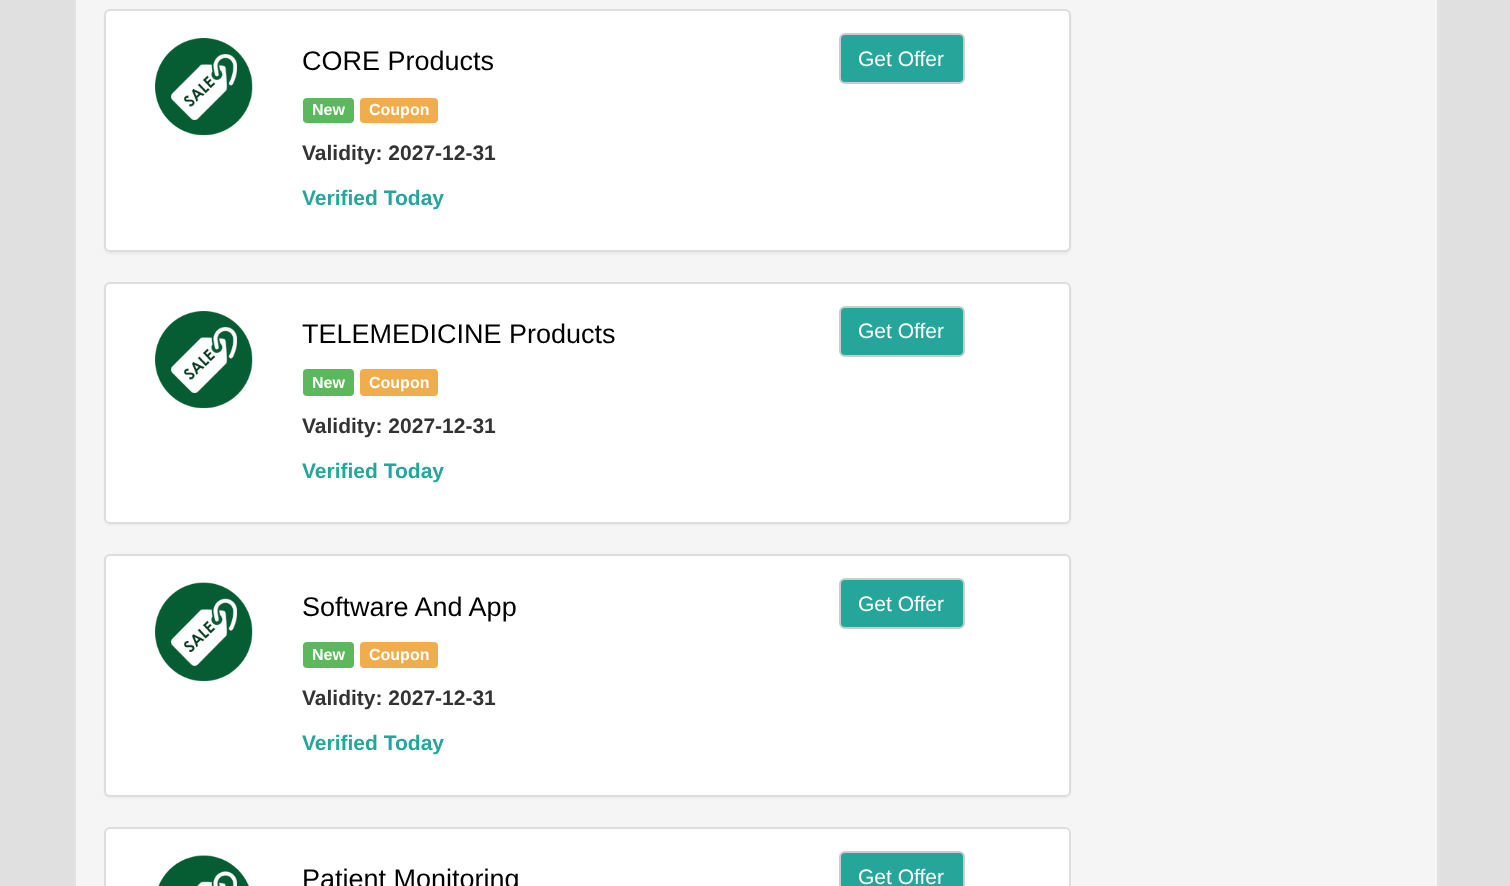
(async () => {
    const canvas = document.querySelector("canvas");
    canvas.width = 1510;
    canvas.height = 886;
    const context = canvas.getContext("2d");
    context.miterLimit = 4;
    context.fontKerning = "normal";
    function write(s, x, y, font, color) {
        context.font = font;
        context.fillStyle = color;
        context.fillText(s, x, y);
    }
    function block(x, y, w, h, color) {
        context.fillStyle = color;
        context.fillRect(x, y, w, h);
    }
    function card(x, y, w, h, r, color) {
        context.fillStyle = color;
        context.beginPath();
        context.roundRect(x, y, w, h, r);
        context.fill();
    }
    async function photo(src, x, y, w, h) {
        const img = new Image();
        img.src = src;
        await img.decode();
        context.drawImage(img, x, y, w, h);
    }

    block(0, 0, 1510, 886, "rgb(224, 224, 224)");
    context.fillStyle = "rgb(245, 245, 245)";
    context.beginPath();
    context.rect(75, -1, 1363, 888);
    context.fill();
    context.strokeStyle = "rgb(227, 227, 227)";
    context.lineWidth = 2;
    context.stroke();
    context.fillStyle = "rgba(0, 0, 0, 0.05)";
    context.filter = "blur(1px)";
    context.beginPath();
    context.roundRect(104, 11, 967, 243, 6);
    context.fill();
    context.filter = "none";
    context.fillStyle = "rgb(255, 255, 255)";
    context.beginPath();
    context.roundRect(105, 10, 965, 241, 5);
    context.fill();
    context.strokeStyle = "rgb(221, 221, 221)";
    context.stroke();
    await photo("media/1.png", 155, 38, 98, 98);
    write("CORE Products", 302, 70, "27px Liberation Sans", "rgb(0, 0, 0)");
    card(303, 98, 51, 25, 4, "rgb(92, 184, 92)");
    write("New", 312, 115, "bold 16px Liberation Sans", "rgb(255, 255, 255)");
    card(360, 98, 78, 25, 4, "rgb(240, 173, 78)");
    write("Coupon", 369, 115, "bold 16px Liberation Sans", "rgb(255, 255, 255)");
    write("Validity: 2027-12-31", 302, 160, "bold 21px Liberation Sans", "rgb(51, 51, 51)");
    write("Verified Today", 302, 205, "bold 21px Liberation Sans", "rgb(38, 166, 154)");
    context.beginPath();
    context.roundRect(840, 34, 124, 49, 5);
    context.fill();
    context.strokeStyle = "rgb(204, 204, 204)";
    context.stroke();
    write("Get Offer", 858, 66, "21px Liberation Sans", "rgb(255, 255, 255)");
    context.fillStyle = "rgba(0, 0, 0, 0.05)";
    context.filter = "blur(1px)";
    context.beginPath();
    context.roundRect(104, 284, 967, 241, 6);
    context.fill();
    context.filter = "none";
    context.fillStyle = "rgb(255, 255, 255)";
    context.beginPath();
    context.roundRect(105, 283, 965, 240, 5);
    context.fill();
    context.strokeStyle = "rgb(221, 221, 221)";
    context.stroke();
    await photo("media/1.png", 155, 311, 98, 98);
    write("TELEMEDICINE Products", 302, 343, "27px Liberation Sans", "rgb(0, 0, 0)");
    card(303, 369, 51, 27, 4, "rgb(92, 184, 92)");
    write("New", 312, 388, "bold 16px Liberation Sans", "rgb(255, 255, 255)");
    card(360, 369, 78, 27, 4, "rgb(240, 173, 78)");
    write("Coupon", 369, 388, "bold 16px Liberation Sans", "rgb(255, 255, 255)");
    write("Validity: 2027-12-31", 302, 433, "bold 21px Liberation Sans", "rgb(51, 51, 51)");
    write("Verified Today", 302, 478, "bold 21px Liberation Sans", "rgb(38, 166, 154)");
    context.beginPath();
    context.roundRect(840, 307, 124, 49, 5);
    context.fill();
    context.strokeStyle = "rgb(204, 204, 204)";
    context.stroke();
    write("Get Offer", 858, 338, "21px Liberation Sans", "rgb(255, 255, 255)");
    context.fillStyle = "rgba(0, 0, 0, 0.05)";
    context.filter = "blur(1px)";
    context.beginPath();
    context.roundRect(104, 555, 967, 243, 6);
    context.fill();
    context.filter = "none";
    context.fillStyle = "rgb(255, 255, 255)";
    context.beginPath();
    context.roundRect(105, 555, 965, 241, 5);
    context.fill();
    context.strokeStyle = "rgb(221, 221, 221)";
    context.stroke();
    await photo("media/2.png", 155, 582, 98, 99);
    write("Software And App", 302, 616, "27px Liberation Sans", "rgb(0, 0, 0)");
    card(303, 642, 51, 26, 4, "rgb(92, 184, 92)");
    write("New", 312, 660, "bold 16px Liberation Sans", "rgb(255, 255, 255)");
    card(360, 642, 78, 26, 4, "rgb(240, 173, 78)");
    write("Coupon", 369, 660, "bold 16px Liberation Sans", "rgb(255, 255, 255)");
    write("Validity: 2027-12-31", 302, 705, "bold 21px Liberation Sans", "rgb(51, 51, 51)");
    write("Verified Today", 302, 750, "bold 21px Liberation Sans", "rgb(38, 166, 154)");
    context.beginPath();
    context.roundRect(840, 579, 124, 49, 5);
    context.fill();
    context.strokeStyle = "rgb(204, 204, 204)";
    context.stroke();
    write("Get Offer", 858, 611, "21px Liberation Sans", "rgb(255, 255, 255)");
    context.beginPath();
    context.roundRect(105, 828, 965, 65, 5);
    context.fill();
    context.strokeStyle = "rgb(221, 221, 221)";
    context.stroke();
    await photo("media/3.png", 158, 855, 91, 31);
    write("Patient Monitoring", 302, 888, "27px Liberation Sans", "rgb(0, 0, 0)");
    context.fillStyle = "rgb(38, 166, 154)";
    context.beginPath();
    context.roundRect(840, 852, 124, 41, 5);
    context.fill();
    context.strokeStyle = "rgb(204, 204, 204)";
    context.stroke();
    write("Get Offer", 858, 884, "21px Liberation Sans", "rgb(255, 255, 255)");
})();
